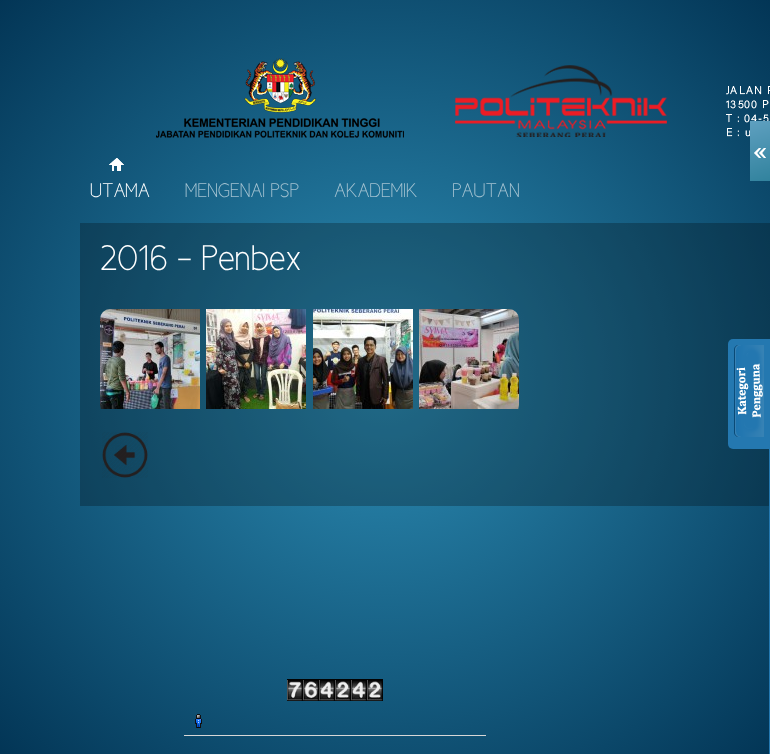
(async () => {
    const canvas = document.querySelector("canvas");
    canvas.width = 770;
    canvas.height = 754;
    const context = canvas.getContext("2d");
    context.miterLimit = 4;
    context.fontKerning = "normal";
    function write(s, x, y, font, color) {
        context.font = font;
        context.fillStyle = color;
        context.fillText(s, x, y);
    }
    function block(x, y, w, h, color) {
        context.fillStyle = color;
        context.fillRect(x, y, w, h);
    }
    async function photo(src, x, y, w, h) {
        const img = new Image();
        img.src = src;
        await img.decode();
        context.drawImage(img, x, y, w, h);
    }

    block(0, 0, 770, 754, "rgb(255, 255, 255)");
    await photo("media/1.png", 0, 0, 770, 754);
    await photo("media/3.png", 156, 58, 614, 80);
    await photo("media/2.png", 750, 121, 20, 60);
    await photo("media/4.png", 109, 158, 15, 13);
    write("UTAMA", 90, 197, "20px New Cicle", "rgb(255, 255, 255)");
    write("MENGENAI PSP", 185, 197, "20px New Cicle", "rgb(163, 194, 209)");
    write("AKADEMIK", 334, 197, "20px New Cicle", "rgb(163, 194, 209)");
    write("PAUTAN", 452, 197, "20px New Cicle", "rgb(163, 194, 209)");
    block(80, 223, 690, 283, "rgba(0, 0, 0, 0.25)");
    write("2016 - Penbex", 100, 270, "36px New Cicle", "rgb(255, 255, 255)");
    await photo("media/5.png", 100, 309, 100, 100);
    await photo("media/6.png", 206, 309, 100, 100);
    await photo("media/7.png", 313, 309, 100, 100);
    await photo("media/8.png", 419, 309, 100, 100);
    await photo("media/9.png", 102, 432, 46, 46);
    await photo("media/10.png", 287, 679, 16, 22);
    await photo("media/11.png", 303, 679, 16, 22);
    await photo("media/12.png", 319, 679, 16, 22);
    await photo("media/13.png", 335, 679, 16, 22);
    await photo("media/12.png", 351, 679, 16, 22);
    await photo("media/13.png", 367, 679, 16, 22);
    await photo("media/14.png", 195, 714, 7, 14);
    block(184, 735, 302, 1, "rgb(215, 215, 215)");
    context.fillStyle = "rgb(36, 120, 176)";
    context.beginPath();
    context.roundRect(728, 339, 42, 110, [5, 0, 0, 5]);
    context.fill();
    await photo("media/15.png", 734, 345, 30, 92);
    block(769, 449, 1, 305, "rgb(36, 120, 176)");
})();
